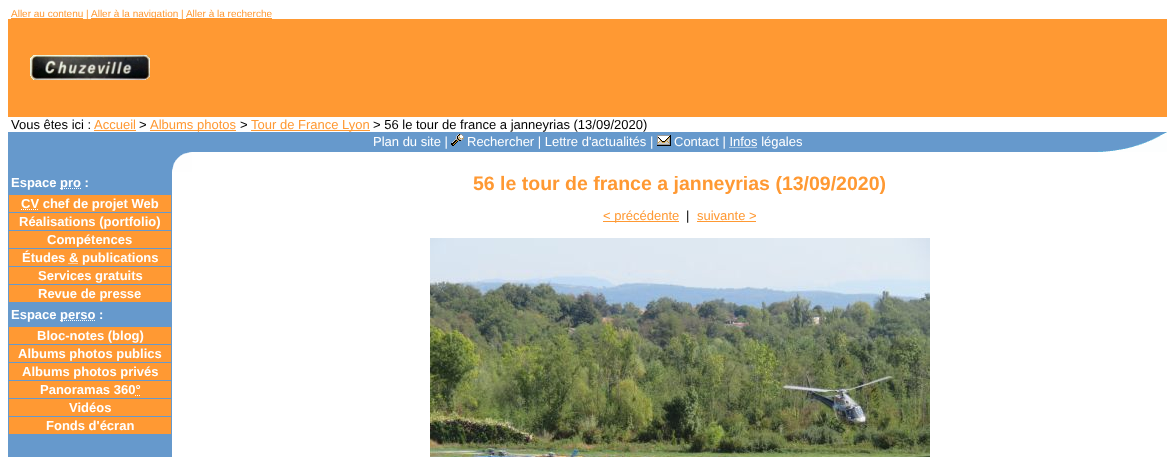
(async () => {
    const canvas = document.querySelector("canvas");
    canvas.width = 1175;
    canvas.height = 457;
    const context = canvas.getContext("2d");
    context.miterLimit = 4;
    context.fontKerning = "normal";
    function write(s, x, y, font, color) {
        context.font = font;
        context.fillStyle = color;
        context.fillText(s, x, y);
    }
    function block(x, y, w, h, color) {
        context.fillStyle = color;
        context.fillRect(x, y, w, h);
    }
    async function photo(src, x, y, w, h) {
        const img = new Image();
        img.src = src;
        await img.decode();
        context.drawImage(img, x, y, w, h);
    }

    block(0, 0, 1175, 457, "rgb(255, 255, 255)");
    block(11, 18, 72, 1, "rgb(255, 153, 51)");
    block(8, 19, 1159, 98, "rgb(255, 153, 51)");
    write("Aller au contenu |", 11, 17, "10px Liberation Sans", "rgb(255, 153, 51)");
    block(91, 18, 87, 1, "rgb(255, 153, 51)");
    write("Aller à la navigation | Aller à la recherche", 91, 17, "10px Liberation Sans", "rgb(255, 153, 51)");
    block(186, 18, 86, 1, "rgb(255, 153, 51)");
    await photo("media/1.png", 30, 55, 120, 25);
    write("Vous êtes ici :", 11, 129, "13px Liberation Sans", "rgb(0, 0, 0)");
    write("Accueil", 94, 129, "13px Liberation Sans", "rgb(255, 153, 51)");
    block(94, 130, 42, 1, "rgb(255, 153, 51)");
    write(">", 139, 129, "13px Liberation Sans", "rgb(0, 0, 0)");
    block(150, 130, 86, 1, "rgb(255, 153, 51)");
    write("Albums photos", 150, 129, "13px Liberation Sans", "rgb(255, 153, 51)");
    write(">", 240, 129, "13px Liberation Sans", "rgb(0, 0, 0)");
    block(251, 130, 119, 1, "rgb(255, 153, 51)");
    write("Tour de France Lyon", 251, 129, "13px Liberation Sans", "rgb(255, 153, 51)");
    write("> 56 le tour de france a janneyrias (13/09/2020)", 373, 129, "13px Liberation Sans", "rgb(0, 0, 0)");
    block(8, 132, 1157, 20, "rgb(102, 153, 204)");
    await photo("media/2.png", 1098, 132, 69, 20);
    write("Plan du site |", 373, 146, "13px Liberation Sans", "rgb(255, 255, 255)");
    await photo("media/3.png", 451, 134, 13, 12);
    write("Rechercher | Lettre d'actualités |", 467, 146, "13px Liberation Sans", "rgb(255, 255, 255)");
    await photo("media/4.png", 657, 135, 14, 11);
    write("Contact | Infos légales", 674, 146, "13px Liberation Sans", "rgb(255, 255, 255)");
    context.beginPath();
    context.moveTo(729.5, 147.5);
    context.lineTo(757.5, 147.5);
    context.strokeStyle = "rgb(255, 255, 255)";
    context.setLineDash([1, 1]);
    context.stroke();
    block(8, 152, 164, 305, "rgb(102, 153, 204)");
    write("Espace", 11, 187, "bold 13px Liberation Sans", "rgb(255, 255, 255)");
    context.beginPath();
    context.moveTo(60, 188.5);
    context.lineTo(81, 188.5);
    context.stroke();
    write("pro :", 60, 187, "bold 13px Liberation Sans", "rgb(255, 255, 255)");
    block(9, 195, 162, 17, "rgb(255, 153, 51)");
    context.beginPath();
    context.moveTo(21, 209.5);
    context.lineTo(39, 209.5);
    context.stroke();
    write("CV chef de projet Web", 21, 208, "bold 13px Liberation Sans", "rgb(255, 255, 255)");
    block(9, 213, 162, 17, "rgb(255, 153, 51)");
    write("Réalisations (portfolio)", 19, 226, "bold 13px Liberation Sans", "rgb(255, 255, 255)");
    block(9, 231, 162, 17, "rgb(255, 153, 51)");
    write("Compétences", 47, 244, "bold 13px Liberation Sans", "rgb(255, 255, 255)");
    block(9, 249, 162, 17, "rgb(255, 153, 51)");
    write("Études & publications", 22, 262, "bold 13px Liberation Sans", "rgb(255, 255, 255)");
    context.beginPath();
    context.moveTo(68.5, 263.5);
    context.lineTo(78, 263.5);
    context.stroke();
    block(9, 267, 162, 17, "rgb(255, 153, 51)");
    write("Services gratuits", 38, 280, "bold 13px Liberation Sans", "rgb(255, 255, 255)");
    block(9, 285, 162, 17, "rgb(255, 153, 51)");
    write("Revue de presse", 38, 298, "bold 13px Liberation Sans", "rgb(255, 255, 255)");
    write("Espace", 11, 319, "bold 13px Liberation Sans", "rgb(255, 255, 255)");
    context.beginPath();
    context.moveTo(60, 320.5);
    context.lineTo(95.5, 320.5);
    context.stroke();
    write("perso :", 60, 319, "bold 13px Liberation Sans", "rgb(255, 255, 255)");
    block(9, 327, 162, 17, "rgb(255, 153, 51)");
    write("Bloc-notes (blog)", 37, 340, "bold 13px Liberation Sans", "rgb(255, 255, 255)");
    block(9, 345, 162, 17, "rgb(255, 153, 51)");
    write("Albums photos publics", 18, 358, "bold 13px Liberation Sans", "rgb(255, 255, 255)");
    block(9, 363, 162, 17, "rgb(255, 153, 51)");
    write("Albums photos privés", 22, 376, "bold 13px Liberation Sans", "rgb(255, 255, 255)");
    block(9, 381, 162, 17, "rgb(255, 153, 51)");
    write("Panoramas 360°", 40, 394, "bold 13px Liberation Sans", "rgb(255, 255, 255)");
    context.beginPath();
    context.moveTo(135, 395.5);
    context.lineTo(136, 395.5);
    context.moveTo(137, 395.5);
    context.lineTo(138, 395.5);
    context.moveTo(139, 395.5);
    context.lineTo(140, 395.5);
    context.setLineDash([]);
    context.stroke();
    block(9, 399, 162, 17, "rgb(255, 153, 51)");
    write("Vidéos", 69, 412, "bold 13px Liberation Sans", "rgb(255, 255, 255)");
    block(9, 417, 162, 17, "rgb(255, 153, 51)");
    write("Fonds d'écran", 46, 430, "bold 13px Liberation Sans", "rgb(255, 255, 255)");
    block(172, 152, 15, 15, "rgb(102, 153, 204)");
    await photo("media/5.png", 172, 152, 20, 20);
    write("56 le tour de france a janneyrias (13/09/2020)", 473, 190, "bold 19.5px Liberation Sans", "rgb(255, 153, 51)");
    block(603, 221, 76, 1, "rgb(255, 153, 51)");
    write("< précédente", 603, 220, "13px Liberation Sans", "rgb(255, 153, 51)");
    write("|", 686, 220, "13px Liberation Sans", "rgb(0, 0, 0)");
    write("suivante >", 697, 220, "13px Liberation Sans", "rgb(255, 153, 51)");
    block(697, 221, 59, 1, "rgb(255, 153, 51)");
    await photo("media/6.png", 430, 238, 500, 219);
})();
